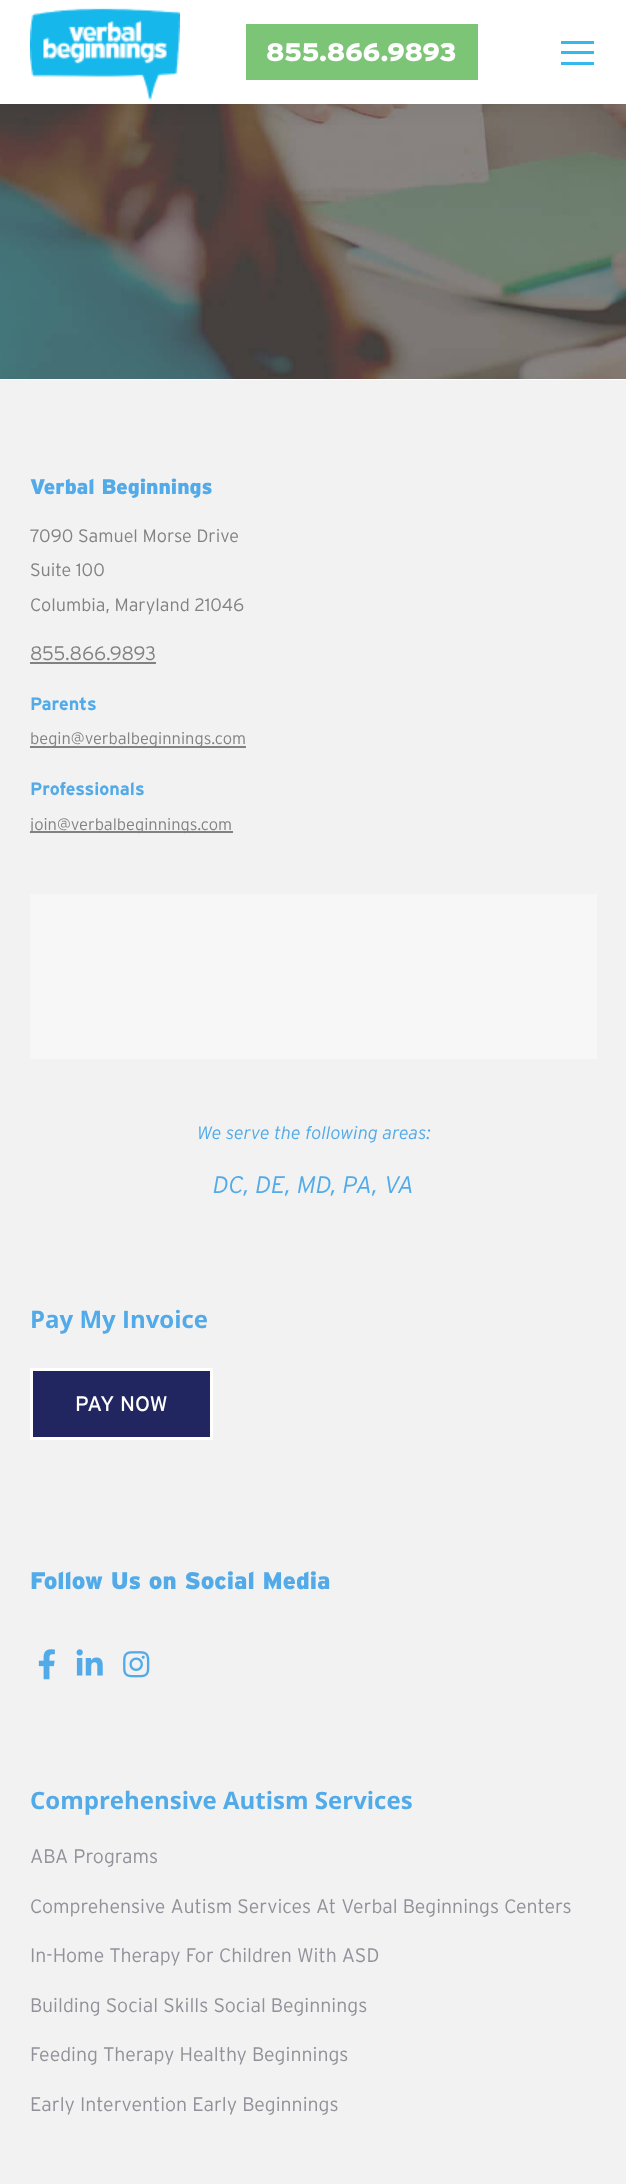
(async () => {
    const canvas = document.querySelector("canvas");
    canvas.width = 626;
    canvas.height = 2184;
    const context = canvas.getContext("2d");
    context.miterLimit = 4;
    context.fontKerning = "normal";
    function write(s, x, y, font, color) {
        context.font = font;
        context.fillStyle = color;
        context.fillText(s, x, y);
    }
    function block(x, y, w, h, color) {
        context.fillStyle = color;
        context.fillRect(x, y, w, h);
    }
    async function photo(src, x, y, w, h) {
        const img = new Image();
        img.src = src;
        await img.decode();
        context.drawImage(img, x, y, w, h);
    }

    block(0, 0, 626, 2184, "rgb(255, 255, 255)");
    await photo("media/2.png", 0, 104, 626, 275);
    context.fillStyle = "rgba(0, 0, 0, 0.07)";
    context.filter = "blur(11px)";
    context.beginPath();
    context.rect(-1, -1, 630, 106);
    context.fill();
    context.filter = "none";
    block(0, 0, 626, 104, "rgb(255, 255, 255)");
    await photo("media/1.png", 30, 8, 150, 92);
    block(246, 24, 232, 56, "rgb(124, 197, 118)");
    write("855.866.9893", 266, 61, "900 25.25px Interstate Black", "rgb(255, 255, 255)");
    block(561, 41, 33, 3, "rgb(53, 184, 236)");
    block(561, 51, 33, 3, "rgb(53, 184, 236)");
    block(561, 62, 33, 3, "rgb(53, 184, 236)");
    block(0, 380, 626, 1804, "rgb(242, 242, 242)");
    write("Verbal Beginnings", 30, 494, "900 21px Interstate Black", "rgb(82, 171, 232)");
    write("7090 Samuel Morse Drive", 30, 542, "300 18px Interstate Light", "rgb(130, 130, 130)");
    write("Suite 100", 30, 576, "300 18px Interstate Light", "rgb(130, 130, 130)");
    write("Columbia, Maryland 21046", 30, 611, "300 18px Interstate Light", "rgb(130, 130, 130)");
    write("855.866.9893", 30, 660, "300 19.5px Interstate Light", "rgb(130, 130, 130)");
    block(30, 662, 126, 2, "rgb(130, 130, 130)");
    write("Parents", 30, 710, "bold 18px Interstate", "rgb(82, 171, 232)");
    block(30, 746, 216, 2, "rgb(130, 130, 130)");
    write("begin@verbalbeginnings.com", 30, 744, "300 16.5px Interstate Light", "rgb(130, 130, 130)");
    write("Professionals", 30, 795, "bold 18px Interstate", "rgb(82, 171, 232)");
    block(30, 831, 203, 2, "rgb(130, 130, 130)");
    write("join@verbalbeginnings.com", 30, 830, "300 16.5px Interstate Light", "rgb(130, 130, 130)");
    block(30, 894, 567, 165, "rgb(247, 247, 247)");
    write("We serve the following areas:", 197, 1139, "italic 300 18px Interstate Light", "rgb(82, 171, 232)");
    write("DC, DE, MD, PA, VA", 213, 1193, "italic 300 24px Interstate Light", "rgb(82, 171, 232)");
    write("Pay My Invoice", 30, 1328, "bold 24px Open Sans", "rgb(82, 171, 232)");
    context.fillStyle = "rgb(33, 38, 97)";
    context.beginPath();
    context.rect(31.5, 1369.5, 180, 69);
    context.fill();
    context.strokeStyle = "rgb(255, 255, 255)";
    context.lineWidth = 3;
    context.stroke();
    write("PAY NOW", 75, 1411, "21px Interstate", "rgb(255, 255, 255)");
    write("Follow Us on Social Media", 30, 1589, "900 24px Interstate Black", "rgb(82, 171, 232)");
    await photo("media/3.png", 38, 1649, 17, 31);
    await photo("media/4.png", 76, 1649, 27, 27);
    await photo("media/5.png", 123, 1651, 27, 27);
    write("Comprehensive Autism Services", 30, 1809, "bold 24px Open Sans", "rgb(82, 171, 232)");
    write("ABA Programs", 30, 1863, "300 19.5px Interstate Light", "rgb(145, 146, 153)");
    write("Comprehensive Autism Services At Verbal Beginnings Centers", 30, 1913, "300 19.5px Interstate Light", "rgb(145, 146, 153)");
    write("In-Home Therapy For Children With ASD", 30, 1962, "300 19.5px Interstate Light", "rgb(145, 146, 153)");
    write("Building Social Skills Social Beginnings", 30, 2012, "300 19.5px Interstate Light", "rgb(145, 146, 153)");
    write("Feeding Therapy Healthy Beginnings", 30, 2061, "300 19.5px Interstate Light", "rgb(145, 146, 153)");
    write("Early Intervention Early Beginnings", 30, 2111, "300 19.5px Interstate Light", "rgb(145, 146, 153)");
})();
